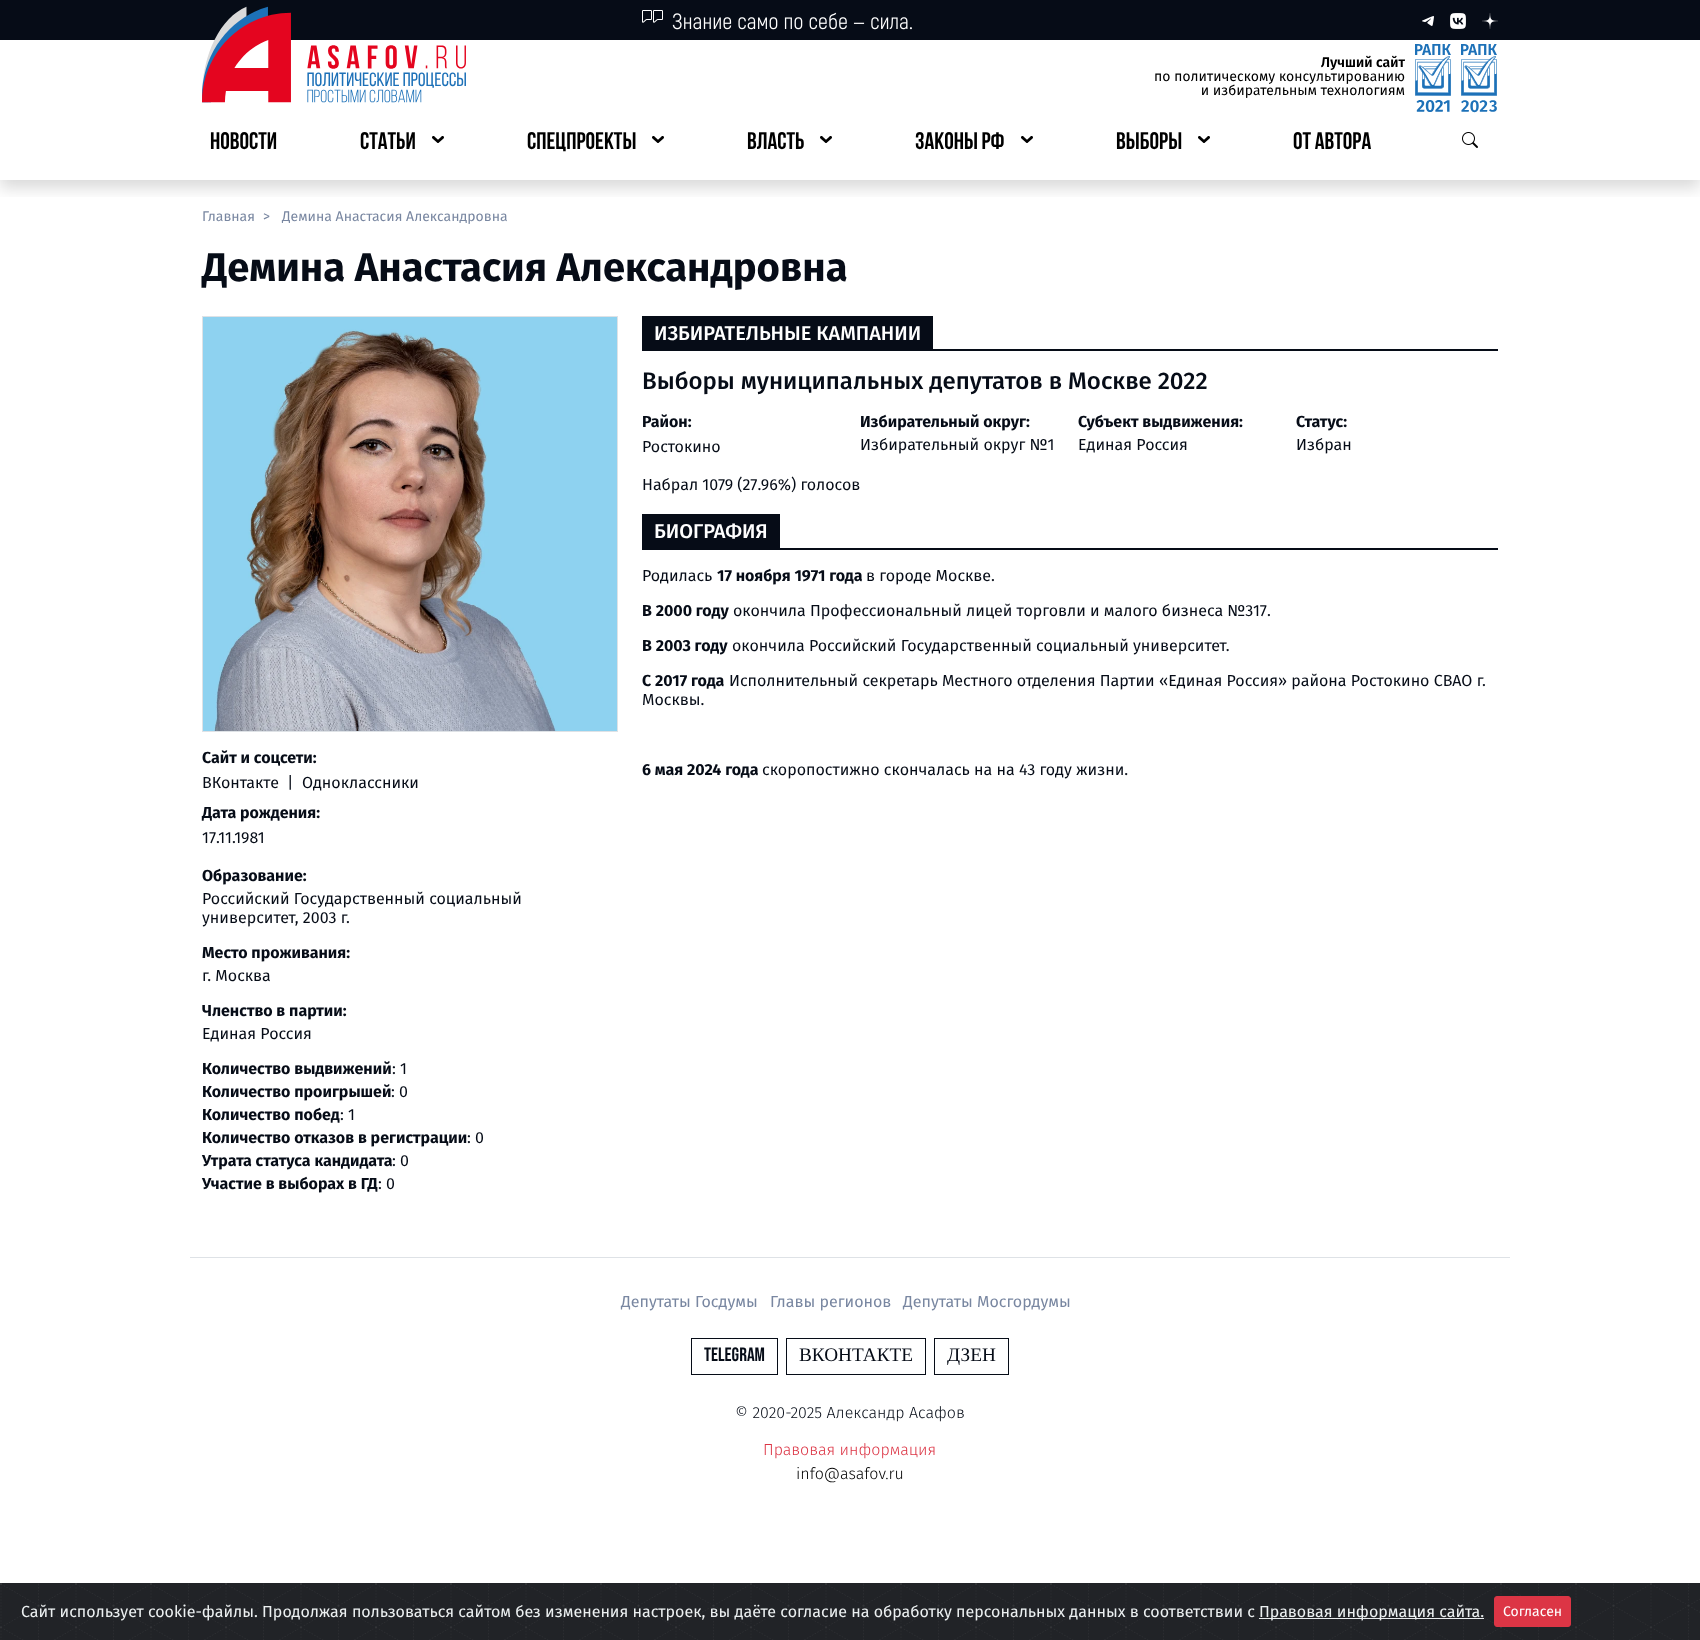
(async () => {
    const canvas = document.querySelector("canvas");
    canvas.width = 1700;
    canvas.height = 1640;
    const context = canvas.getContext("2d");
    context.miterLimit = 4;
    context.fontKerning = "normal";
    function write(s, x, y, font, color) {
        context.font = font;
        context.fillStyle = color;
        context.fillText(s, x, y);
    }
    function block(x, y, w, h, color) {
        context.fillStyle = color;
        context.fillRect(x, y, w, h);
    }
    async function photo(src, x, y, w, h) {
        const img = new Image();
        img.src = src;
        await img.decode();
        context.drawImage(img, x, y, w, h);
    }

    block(0, 0, 1700, 1640, "rgb(255, 255, 255)");
    context.save();
    context.beginPath();
    context.rect(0, 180, 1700, 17);
    context.clip();
    context.fillStyle = "rgba(0, 0, 0, 0.15)";
    context.filter = "blur(8px)";
    context.beginPath();
    context.rect(0, 8, 1700, 180);
    context.fill();
    context.filter = "none";
    context.restore();
    block(0, 0, 1700, 40, "rgb(6, 12, 23)");
    await photo("media/1.png", 642, 10, 270, 20);
    await photo("media/2.png", 1422, 16, 12, 10);
    await photo("media/3.png", 1450, 13, 16, 16);
    await photo("media/4.png", 1482, 13, 16, 16);
    await photo("media/5.png", 202, 6, 264, 97);
    await photo("media/6.png", 1155, 44, 342, 69);
    write("НОВОСТИ", 210, 149, "bold 24px Bebas Neue", "rgb(0, 0, 0)");
    write("СТАТЬИ", 360, 149, "bold 24px Bebas Neue", "rgb(0, 0, 0)");
    await photo("media/7.png", 432, 136, 12, 7);
    write("СПЕЦПРОЕКТЫ", 527, 149, "bold 24px Bebas Neue", "rgb(0, 0, 0)");
    await photo("media/7.png", 652, 136, 12, 7);
    write("ВЛАСТЬ", 747, 149, "bold 24px Bebas Neue", "rgb(0, 0, 0)");
    await photo("media/7.png", 820, 136, 12, 7);
    write("ЗАКОНЫ РФ", 915, 149, "bold 24px Bebas Neue", "rgb(0, 0, 0)");
    await photo("media/7.png", 1021, 136, 12, 7);
    write("ВЫБОРЫ", 1116, 149, "bold 24px Bebas Neue", "rgb(0, 0, 0)");
    await photo("media/7.png", 1198, 136, 12, 7);
    write("ОТ АВТОРА", 1293, 149, "bold 24px Bebas Neue", "rgb(0, 0, 0)");
    await photo("media/8.png", 1462, 132, 16, 16);
    write("Главная", 202, 221, "14px Fira Sans", "rgb(121, 135, 161)");
    write(">", 263, 221, "14px Fira Sans", "rgb(121, 135, 161)");
    write("Демина Анастасия Александровна", 282, 221, "14px Fira Sans", "rgb(121, 135, 161)");
    write("Демина Анастасия Александровна", 202, 281, "bold 40px Fira Sans", "rgb(6, 12, 23)");
    block(642, 349, 856, 2, "rgb(6, 12, 23)");
    block(642, 316, 291, 33, "rgb(6, 12, 23)");
    write("ИЗБИРАТЕЛЬНЫЕ КАМПАНИИ", 654, 340, "500 20px Fira Sans", "rgb(255, 255, 255)");
    write("Выборы муниципальных депутатов в Москве 2022", 642, 389, "500 24px Fira Sans", "rgb(6, 12, 23)");
    write("Район:", 642, 427, "bold 16px Fira Sans", "rgb(6, 12, 23)");
    write("Ростокино", 642, 452, "16px Fira Sans", "rgb(6, 12, 23)");
    write("Избирательный округ:", 860, 427, "bold 16px Fira Sans", "rgb(6, 12, 23)");
    write("Избирательный округ №1", 860, 450, "16px Fira Sans", "rgb(6, 12, 23)");
    write("Субъект выдвижения:", 1078, 427, "bold 16px Fira Sans", "rgb(6, 12, 23)");
    write("Единая Россия", 1078, 450, "16px Fira Sans", "rgb(6, 12, 23)");
    write("Статус:", 1296, 427, "bold 16px Fira Sans", "rgb(6, 12, 23)");
    write("Избран", 1296, 450, "16px Fira Sans", "rgb(6, 12, 23)");
    write("Набрал 1079 (27.96%) голосов", 642, 490, "16px Fira Sans", "rgb(6, 12, 23)");
    block(642, 548, 856, 2, "rgb(6, 12, 23)");
    block(642, 514, 138, 34, "rgb(6, 12, 23)");
    write("БИОГРАФИЯ", 654, 538, "500 20px Fira Sans", "rgb(255, 255, 255)");
    write("Родилась", 642, 581, "16px Fira Sans", "rgb(6, 12, 23)");
    write("17 ноября 1971 года", 717, 581, "bold 16px Fira Sans", "rgb(6, 12, 23)");
    write("в городе Москве.", 866, 581, "16px Fira Sans", "rgb(6, 12, 23)");
    write("В 2000 году", 642, 616, "bold 16px Fira Sans", "rgb(6, 12, 23)");
    write("окончила Профессиональный лицей торговли и малого бизнеса №317.", 733, 616, "16px Fira Sans", "rgb(6, 12, 23)");
    write("В 2003 году", 642, 651, "bold 16px Fira Sans", "rgb(6, 12, 23)");
    write("окончила Российский Государственный социальный университет.", 732, 651, "16px Fira Sans", "rgb(6, 12, 23)");
    write("С 2017 года", 642, 686, "bold 16px Fira Sans", "rgb(6, 12, 23)");
    write("Исполнительный секретарь Местного отделения Партии «Единая Россия» района Ростокино СВАО г.", 729, 686, "16px Fira Sans", "rgb(6, 12, 23)");
    write("Москвы.", 642, 705, "16px Fira Sans", "rgb(6, 12, 23)");
    write("6 мая 2024 года", 642, 775, "bold 16px Fira Sans", "rgb(6, 12, 23)");
    write("скоропостижно скончалась на на 43 году жизни.", 762, 775, "16px Fira Sans", "rgb(6, 12, 23)");
    context.strokeStyle = "rgb(222, 226, 230)";
    context.strokeRect(202.5, 316.5, 415, 415);
    await photo("media/9.png", 203, 317, 414, 414);
    write("Сайт и соцсети:", 202, 763, "bold 16px Fira Sans", "rgb(6, 12, 23)");
    write("ВКонтакте", 202, 788, "16px Fira Sans", "rgb(6, 12, 23)");
    write("|", 287, 788, "16px Fira Sans", "rgb(6, 12, 23)");
    write("Одноклассники", 302, 788, "16px Fira Sans", "rgb(6, 12, 23)");
    write("Дата рождения:", 202, 818, "bold 16px Fira Sans", "rgb(6, 12, 23)");
    write("17.11.1981", 202, 843, "16px Fira Sans", "rgb(6, 12, 23)");
    write("Образование:", 202, 881, "bold 16px Fira Sans", "rgb(6, 12, 23)");
    write("Российский Государственный социальный", 202, 904, "16px Fira Sans", "rgb(6, 12, 23)");
    write("университет, 2003 г.", 202, 923, "16px Fira Sans", "rgb(6, 12, 23)");
    write("Место проживания:", 202, 958, "bold 16px Fira Sans", "rgb(6, 12, 23)");
    write("г. Москва", 202, 981, "16px Fira Sans", "rgb(6, 12, 23)");
    write("Членство в партии:", 202, 1016, "bold 16px Fira Sans", "rgb(6, 12, 23)");
    write("Единая Россия", 202, 1039, "16px Fira Sans", "rgb(6, 12, 23)");
    write("Количество выдвижений", 202, 1074, "bold 16px Fira Sans", "rgb(6, 12, 23)");
    write(": 1", 392, 1074, "16px Fira Sans", "rgb(6, 12, 23)");
    write("Количество проигрышей", 202, 1097, "bold 16px Fira Sans", "rgb(6, 12, 23)");
    write(": 0", 391, 1097, "16px Fira Sans", "rgb(6, 12, 23)");
    write("Количество побед", 202, 1120, "bold 16px Fira Sans", "rgb(6, 12, 23)");
    write(": 1", 340, 1120, "16px Fira Sans", "rgb(6, 12, 23)");
    write("Количество отказов в регистрации", 202, 1143, "bold 16px Fira Sans", "rgb(6, 12, 23)");
    write(": 0", 467, 1143, "16px Fira Sans", "rgb(6, 12, 23)");
    write("Утрата статуса кандидата", 202, 1166, "bold 16px Fira Sans", "rgb(6, 12, 23)");
    write(": 0", 392, 1166, "16px Fira Sans", "rgb(6, 12, 23)");
    write("Участие в выборах в ГД", 202, 1189, "bold 16px Fira Sans", "rgb(6, 12, 23)");
    write(": 0", 378, 1189, "16px Fira Sans", "rgb(6, 12, 23)");
    block(190, 1257, 1320, 1, "rgb(222, 226, 230)");
    write("Депутаты Госдумы", 621, 1307, "16px Fira Sans", "rgb(121, 135, 161)");
    write("Главы регионов", 770, 1307, "16px Fira Sans", "rgb(121, 135, 161)");
    write("Депутаты Мосгордумы", 903, 1307, "16px Fira Sans", "rgb(121, 135, 161)");
    context.strokeStyle = "rgb(6, 12, 23)";
    context.strokeRect(691.5, 1338.5, 86, 36);
    write("TELEGRAM", 704, 1361, "19.25px Bebas Neue", "rgb(6, 12, 23)");
    context.strokeRect(786.5, 1338.5, 139, 36);
    write("ВКОНТАКТЕ", 799, 1361, "19.25px Liberation Serif", "rgb(6, 12, 23)");
    context.strokeRect(934.5, 1338.5, 74, 36);
    write("ДЗЕН", 947, 1361, "19.25px Liberation Serif", "rgb(6, 12, 23)");
    write("© 2020-2025 Александр Асафов", 735, 1418, "300 16px Fira Sans", "rgb(6, 12, 23)");
    write("Правовая информация", 763, 1455, "300 16px Fira Sans", "rgb(220, 53, 69)");
    write("info@asafov.ru", 796, 1479, "300 16px Fira Sans", "rgb(0, 0, 0)");
    await photo("media/10.png", 0, 1583, 1700, 57);
    write("Сайт использует cookie-файлы. Продолжая пользоваться сайтом без изменения настроек, вы даёте согласие на обработку персональных данных в соответствии с", 21, 1617, "16px Fira Sans", "rgb(236, 240, 241)");
    block(1259, 1618, 225, 1, "rgb(233, 236, 239)");
    write("Правовая информация сайта.", 1259, 1617, "16px Fira Sans", "rgb(236, 240, 241)");
    context.fillStyle = "rgb(220, 53, 69)";
    context.beginPath();
    context.roundRect(1494.5, 1596.5, 76, 30, 2.5);
    context.fill();
    context.strokeStyle = "rgb(220, 53, 69)";
    context.stroke();
    write("Согласен", 1503, 1616, "14px Fira Sans", "rgb(255, 255, 255)");
})();
